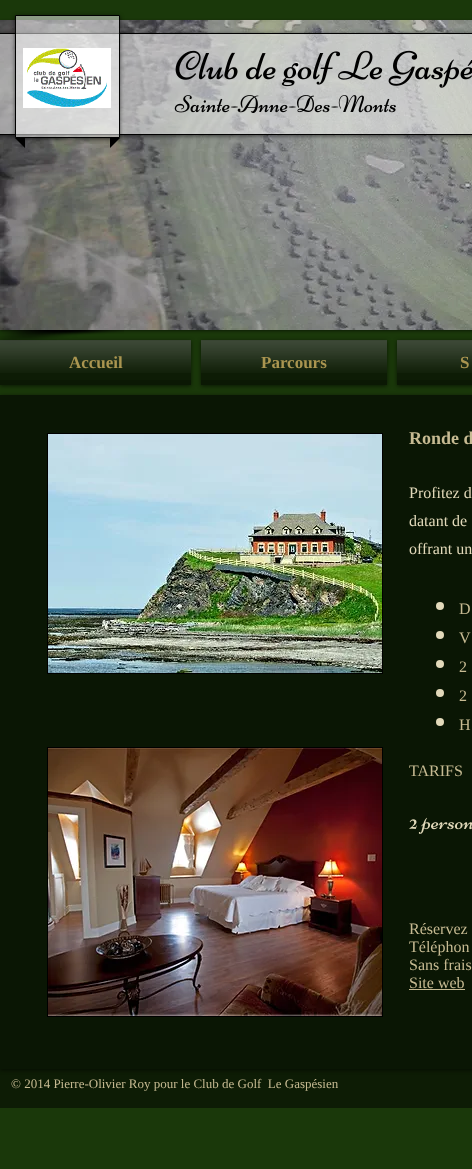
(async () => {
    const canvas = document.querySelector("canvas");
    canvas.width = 472;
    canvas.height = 1169;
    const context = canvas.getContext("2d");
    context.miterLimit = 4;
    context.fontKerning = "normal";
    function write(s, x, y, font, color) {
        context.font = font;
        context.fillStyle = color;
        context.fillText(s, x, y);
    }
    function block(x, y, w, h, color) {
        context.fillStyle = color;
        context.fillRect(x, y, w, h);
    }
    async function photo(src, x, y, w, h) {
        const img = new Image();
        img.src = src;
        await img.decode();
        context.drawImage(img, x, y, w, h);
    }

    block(0, 0, 472, 1169, "rgb(26, 56, 10)");
    context.fillStyle = "rgba(0, 0, 0, 0.5)";
    context.filter = "blur(1.5px)";
    context.beginPath();
    context.rect(0, 21, 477, 310);
    context.fill();
    context.filter = "none";
    await photo("media/2.png", 0, 20, 472, 310);
    context.save();
    context.beginPath();
    context.moveTo(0, 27);
    context.lineTo(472, 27);
    context.lineTo(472, 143);
    context.lineTo(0, 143);
    context.closePath();
    context.moveTo(-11, 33);
    context.lineTo(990, 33);
    context.lineTo(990, 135);
    context.lineTo(-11, 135);
    context.closePath();
    context.clip("evenodd");
    context.fillStyle = "rgba(0, 0, 0, 0.6)";
    context.filter = "blur(2px)";
    context.beginPath();
    context.rect(-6, 34, 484, 102);
    context.fill();
    context.filter = "none";
    context.restore();
    context.fillStyle = "rgb(0, 0, 0)";
    context.beginPath();
    context.moveTo(15, 138);
    context.lineTo(25, 138);
    context.lineTo(25, 148);
    context.closePath();
    context.fill();
    context.beginPath();
    context.moveTo(110, 138);
    context.lineTo(120, 138);
    context.lineTo(110, 148);
    context.closePath();
    context.fill();
    context.fillStyle = "rgba(255, 255, 255, 0.5)";
    context.beginPath();
    context.rect(-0.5, 33.5, 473, 101);
    context.fill();
    context.strokeStyle = "rgb(0, 0, 0)";
    context.stroke();
    context.save();
    context.beginPath();
    context.moveTo(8, 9);
    context.lineTo(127, 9);
    context.lineTo(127, 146);
    context.lineTo(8, 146);
    context.closePath();
    context.moveTo(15, 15);
    context.lineTo(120, 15);
    context.lineTo(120, 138);
    context.lineTo(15, 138);
    context.closePath();
    context.clip("evenodd");
    context.fillStyle = "rgba(0, 0, 0, 0.6)";
    context.filter = "blur(2px)";
    context.beginPath();
    context.rect(15, 16, 105, 123);
    context.fill();
    context.filter = "none";
    context.restore();
    context.beginPath();
    context.rect(15.5, 15.5, 104, 122);
    context.fill();
    context.stroke();
    await photo("media/1.png", 23, 48, 88, 60);
    await photo("media/3.png", 0, 330, 124, 15);
    await photo("media/4.png", 175, 50, 297, 38);
    await photo("media/5.png", 174, 95, 222, 18);
    context.save();
    context.beginPath();
    context.moveTo(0, 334);
    context.lineTo(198, 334);
    context.lineTo(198, 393);
    context.lineTo(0, 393);
    context.closePath();
    context.moveTo(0, 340);
    context.lineTo(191, 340);
    context.lineTo(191, 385);
    context.lineTo(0, 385);
    context.closePath();
    context.clip("evenodd");
    context.fillStyle = "rgba(0, 0, 0, 0.6)";
    context.filter = "blur(2px)";
    context.beginPath();
    context.rect(0, 341, 191, 45);
    context.fill();
    context.filter = "none";
    context.restore();
    block(0, 340, 191, 40, "rgba(0, 0, 0, 0.5)");
    await photo("media/6.png", 0, 340, 191, 33);
    block(0, 380, 191, 5, "rgb(11, 24, 4)");
    write("Accueil", 69, 368, "bold 17px Liberation Serif", "rgb(170, 149, 80)");
    context.fillStyle = "rgba(0, 0, 0, 0.6)";
    context.filter = "blur(2px)";
    context.beginPath();
    context.rect(201, 341, 186, 45);
    context.fill();
    context.filter = "none";
    block(201, 340, 186, 40, "rgb(13, 28, 5)");
    await photo("media/7.png", 201, 340, 186, 33);
    block(201, 380, 186, 5, "rgb(11, 24, 4)");
    write("Parcours", 261, 368, "bold 17px Liberation Serif", "rgb(170, 149, 80)");
    context.fillStyle = "rgba(0, 0, 0, 0.6)";
    context.filter = "blur(2px)";
    context.beginPath();
    context.rect(397, 341, 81, 45);
    context.fill();
    context.filter = "none";
    block(397, 340, 75, 40, "rgb(13, 28, 5)");
    await photo("media/8.png", 397, 340, 75, 33);
    block(397, 380, 75, 5, "rgb(11, 24, 4)");
    write("S", 460, 368, "bold 17px Liberation Serif", "rgb(170, 149, 80)");
    context.fillStyle = "rgba(0, 0, 0, 0.6)";
    context.filter = "blur(2px)";
    context.beginPath();
    context.rect(0, 396, 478, 674);
    context.fill();
    context.filter = "none";
    block(0, 395, 472, 674, "rgb(10, 22, 4)");
    block(47, 433, 336, 241, "rgb(0, 0, 0)");
    await photo("media/9.png", 48, 434, 334, 239);
    write("Ronde d", 409, 444, "bold 18px Liberation Serif", "rgb(198, 186, 146)");
    write("Profitez d", 409, 498, "16px Liberation Serif", "rgb(226, 217, 186)");
    write("datant de", 409, 526, "16px Liberation Serif", "rgb(226, 217, 186)");
    write("offrant un", 409, 554, "16px Liberation Serif", "rgb(226, 217, 186)");
    context.beginPath();
    context.arc(440, 606, 4, 0, Math.PI * 2);
    context.fill();
    write("D", 459, 614, "16px Liberation Serif", "rgb(198, 186, 146)");
    context.fillStyle = "rgb(226, 217, 186)";
    context.beginPath();
    context.arc(440, 635, 4, 0, Math.PI * 2);
    context.fill();
    write("V", 459, 643, "16px Liberation Serif", "rgb(198, 186, 146)");
    context.fillStyle = "rgb(226, 217, 186)";
    context.beginPath();
    context.arc(440, 664, 4, 0, Math.PI * 2);
    context.fill();
    write("2", 459, 672, "16px Liberation Serif", "rgb(198, 186, 146)");
    context.fillStyle = "rgb(226, 217, 186)";
    context.beginPath();
    context.arc(440, 693, 4, 0, Math.PI * 2);
    context.fill();
    write("2", 459, 701, "16px Liberation Serif", "rgb(198, 186, 146)");
    context.fillStyle = "rgb(226, 217, 186)";
    context.beginPath();
    context.arc(440, 722, 4, 0, Math.PI * 2);
    context.fill();
    write("H", 459, 730, "16px Liberation Serif", "rgb(198, 186, 146)");
    write("TARIFS", 409, 776, "16px Liberation Serif", "rgb(198, 186, 146)");
    await photo("media/10.png", 409, 817, 63, 17);
    write("Réservez", 409, 934, "16px Liberation Serif", "rgb(198, 186, 146)");
    write("Téléphon", 409, 952, "16px Liberation Serif", "rgb(198, 186, 146)");
    write("Sans frais", 409, 970, "16px Liberation Serif", "rgb(198, 186, 146)");
    write("Site web", 409, 988, "16px Liberation Serif", "rgb(198, 186, 146)");
    block(409, 989, 56, 1, "rgb(198, 186, 146)");
    block(47, 747, 336, 270, "rgb(0, 0, 0)");
    await photo("media/11.png", 48, 748, 334, 268);
    block(0, 1069, 472, 39, "rgba(0, 0, 0, 0.5)");
    write("© 2014 Pierre-Olivier Roy pour le Club de Golf  Le Gaspésien", 11, 1088, "13px Liberation Serif", "rgb(198, 186, 146)");
})();
